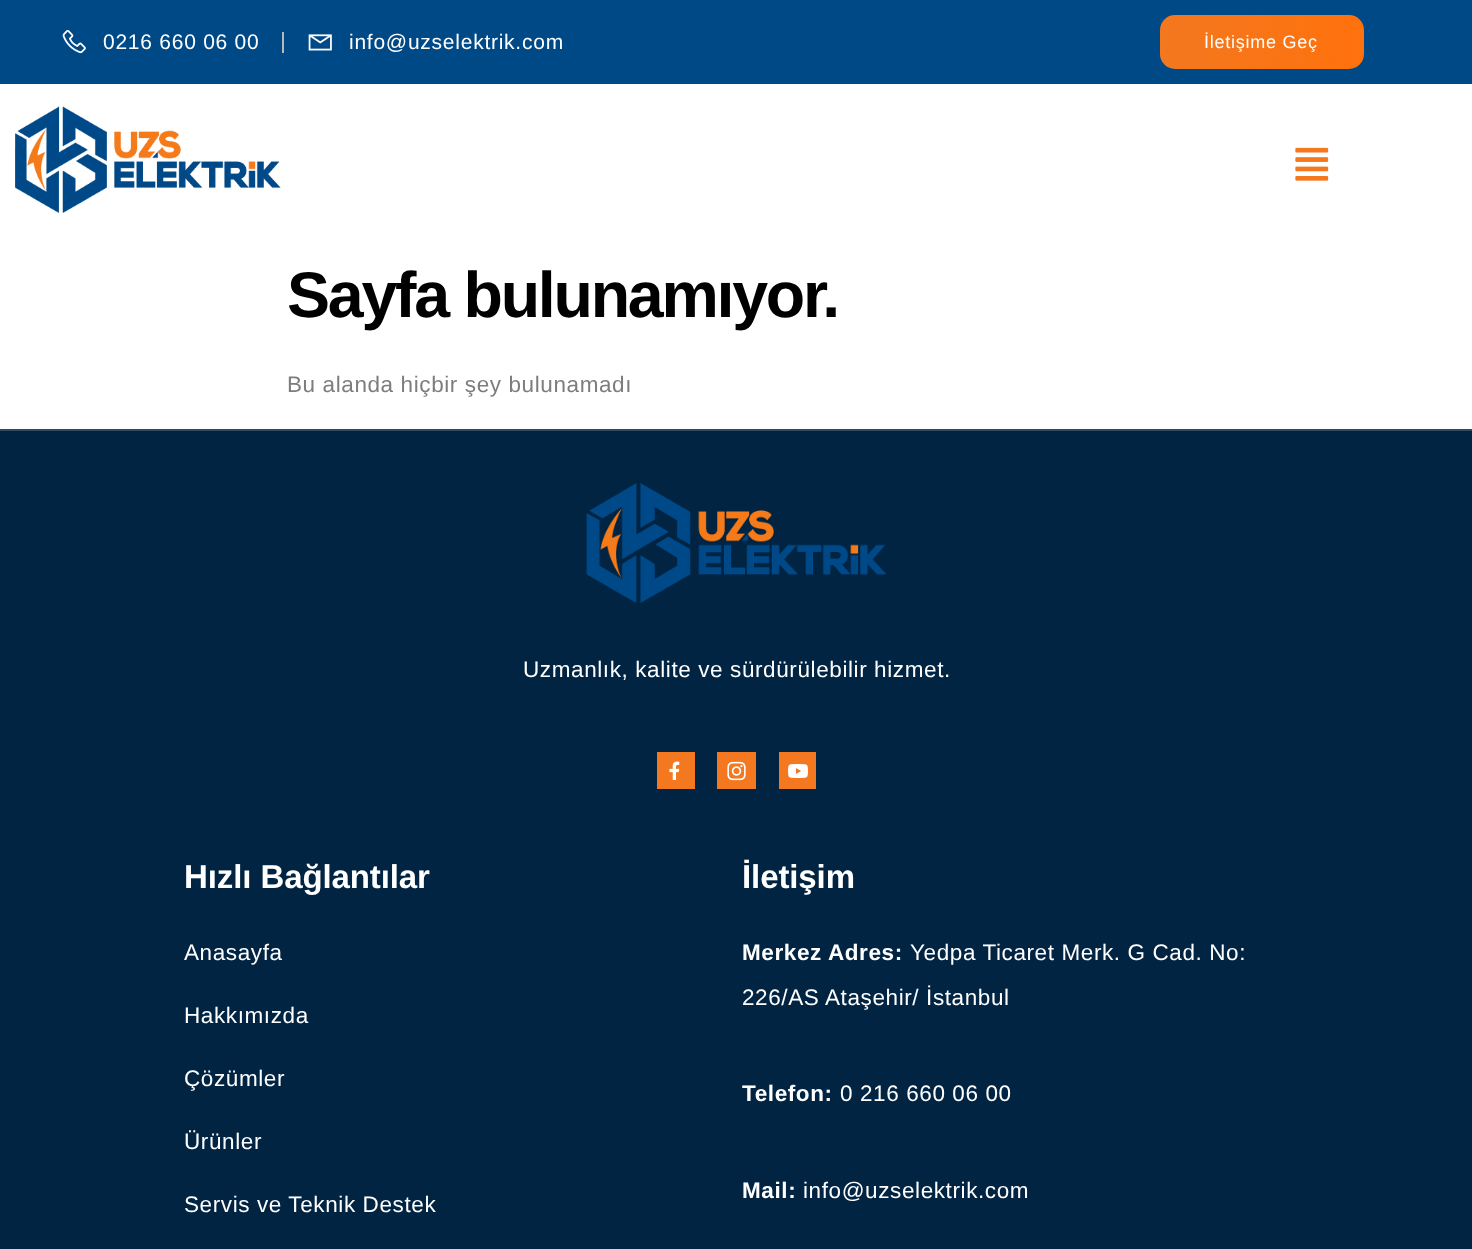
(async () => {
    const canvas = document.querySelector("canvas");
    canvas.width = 1472;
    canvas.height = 1249;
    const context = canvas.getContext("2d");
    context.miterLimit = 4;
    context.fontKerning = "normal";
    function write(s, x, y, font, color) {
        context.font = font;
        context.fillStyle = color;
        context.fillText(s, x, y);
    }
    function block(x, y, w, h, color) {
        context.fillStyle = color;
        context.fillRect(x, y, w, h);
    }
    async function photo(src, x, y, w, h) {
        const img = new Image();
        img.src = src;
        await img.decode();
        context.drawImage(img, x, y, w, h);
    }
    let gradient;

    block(0, 0, 1472, 1249, "rgb(255, 255, 255)");
    block(0, 0, 1472, 84, "rgb(0, 73, 135)");
    await photo("media/1.png", 62, 30, 24, 24);
    context.letterSpacing = "0.75px";
    write("0216 660 06 00", 103, 49, "21px Liberation Sans", "rgb(255, 255, 255)");
    block(282, 32, 2, 21, "rgb(185, 185, 185)");
    await photo("media/2.png", 308, 34, 24, 17);
    write("info@uzselektrik.com", 349, 49, "21px Liberation Sans", "rgb(255, 255, 255)");
    gradient = context.createLinearGradient(1159, 44, 1364, 40);
    gradient.addColorStop(0, "rgb(243, 120, 32)");
    gradient.addColorStop(1, "rgb(255, 113, 12)");
    context.fillStyle = gradient;
    context.beginPath();
    context.roundRect(1160, 15, 204, 54, 15);
    context.fill();
    write("İletişime Geç", 1204, 48, "18px Liberation Sans", "rgb(255, 255, 255)");
    await photo("media/3.png", 15, 106, 266, 107);
    await photo("media/4.png", 1295, 147, 34, 34);
    context.letterSpacing = "-2.25px";
    write("Sayfa bulunamıyor.", 287, 317, "bold 64.5px Liberation Sans", "rgb(0, 0, 0)");
    context.letterSpacing = "0.6px";
    write("Bu alanda hiçbir şey bulunamadı", 287, 392, "22.5px Liberation Sans", "rgb(125, 125, 125)");
    block(0, 431, 1472, 818, "rgb(0, 36, 66)");
    block(0, 429, 1472, 2, "rgb(47, 75, 99)");
    await photo("media/5.png", 586, 483, 301, 120);
    write("Uzmanlık, kalite ve sürdürülebilir hizmet.", 523, 677, "22.5px Liberation Sans", "rgb(255, 255, 255)");
    block(657, 752, 38, 37, "rgb(243, 120, 32)");
    await photo("media/6.png", 669, 761, 11, 19);
    block(717, 752, 39, 37, "rgb(243, 120, 32)");
    await photo("media/7.png", 727, 761, 19, 20);
    block(779, 752, 37, 37, "rgb(243, 120, 32)");
    await photo("media/8.png", 788, 764, 20, 14);
    context.letterSpacing = "-0.1px";
    write("Hızlı Bağlantılar", 184, 888, "bold 33px Liberation Sans", "rgb(255, 255, 255)");
    context.letterSpacing = "0.6px";
    write("Anasayfa", 184, 960, "22.5px Liberation Sans", "rgb(255, 255, 255)");
    write("Hakkımızda", 184, 1023, "22.5px Liberation Sans", "rgb(255, 255, 255)");
    write("Çözümler", 184, 1086, "22.5px Liberation Sans", "rgb(255, 255, 255)");
    write("Ürünler", 184, 1149, "22.5px Liberation Sans", "rgb(255, 255, 255)");
    write("Servis ve Teknik Destek", 184, 1212, "22.5px Liberation Sans", "rgb(255, 255, 255)");
    context.letterSpacing = "-0.1px";
    write("İletişim", 742, 888, "bold 33px Liberation Sans", "rgb(255, 255, 255)");
    context.letterSpacing = "0.6px";
    write("Merkez Adres:", 742, 960, "bold 22.5px Liberation Sans", "rgb(255, 255, 255)");
    write("Yedpa Ticaret Merk. G Cad. No:", 910, 960, "22.5px Liberation Sans", "rgb(255, 255, 255)");
    write("226/AS Ataşehir/ İstanbul", 742, 1005, "22.5px Liberation Sans", "rgb(255, 255, 255)");
    write("Telefon:", 742, 1101, "bold 22.5px Liberation Sans", "rgb(255, 255, 255)");
    write("0 216 660 06 00", 840, 1101, "22.5px Liberation Sans", "rgb(255, 255, 255)");
    write("Mail:", 742, 1198, "bold 22.5px Liberation Sans", "rgb(255, 255, 255)");
    write("info@uzselektrik.com", 803, 1198, "22.5px Liberation Sans", "rgb(255, 255, 255)");
})();
